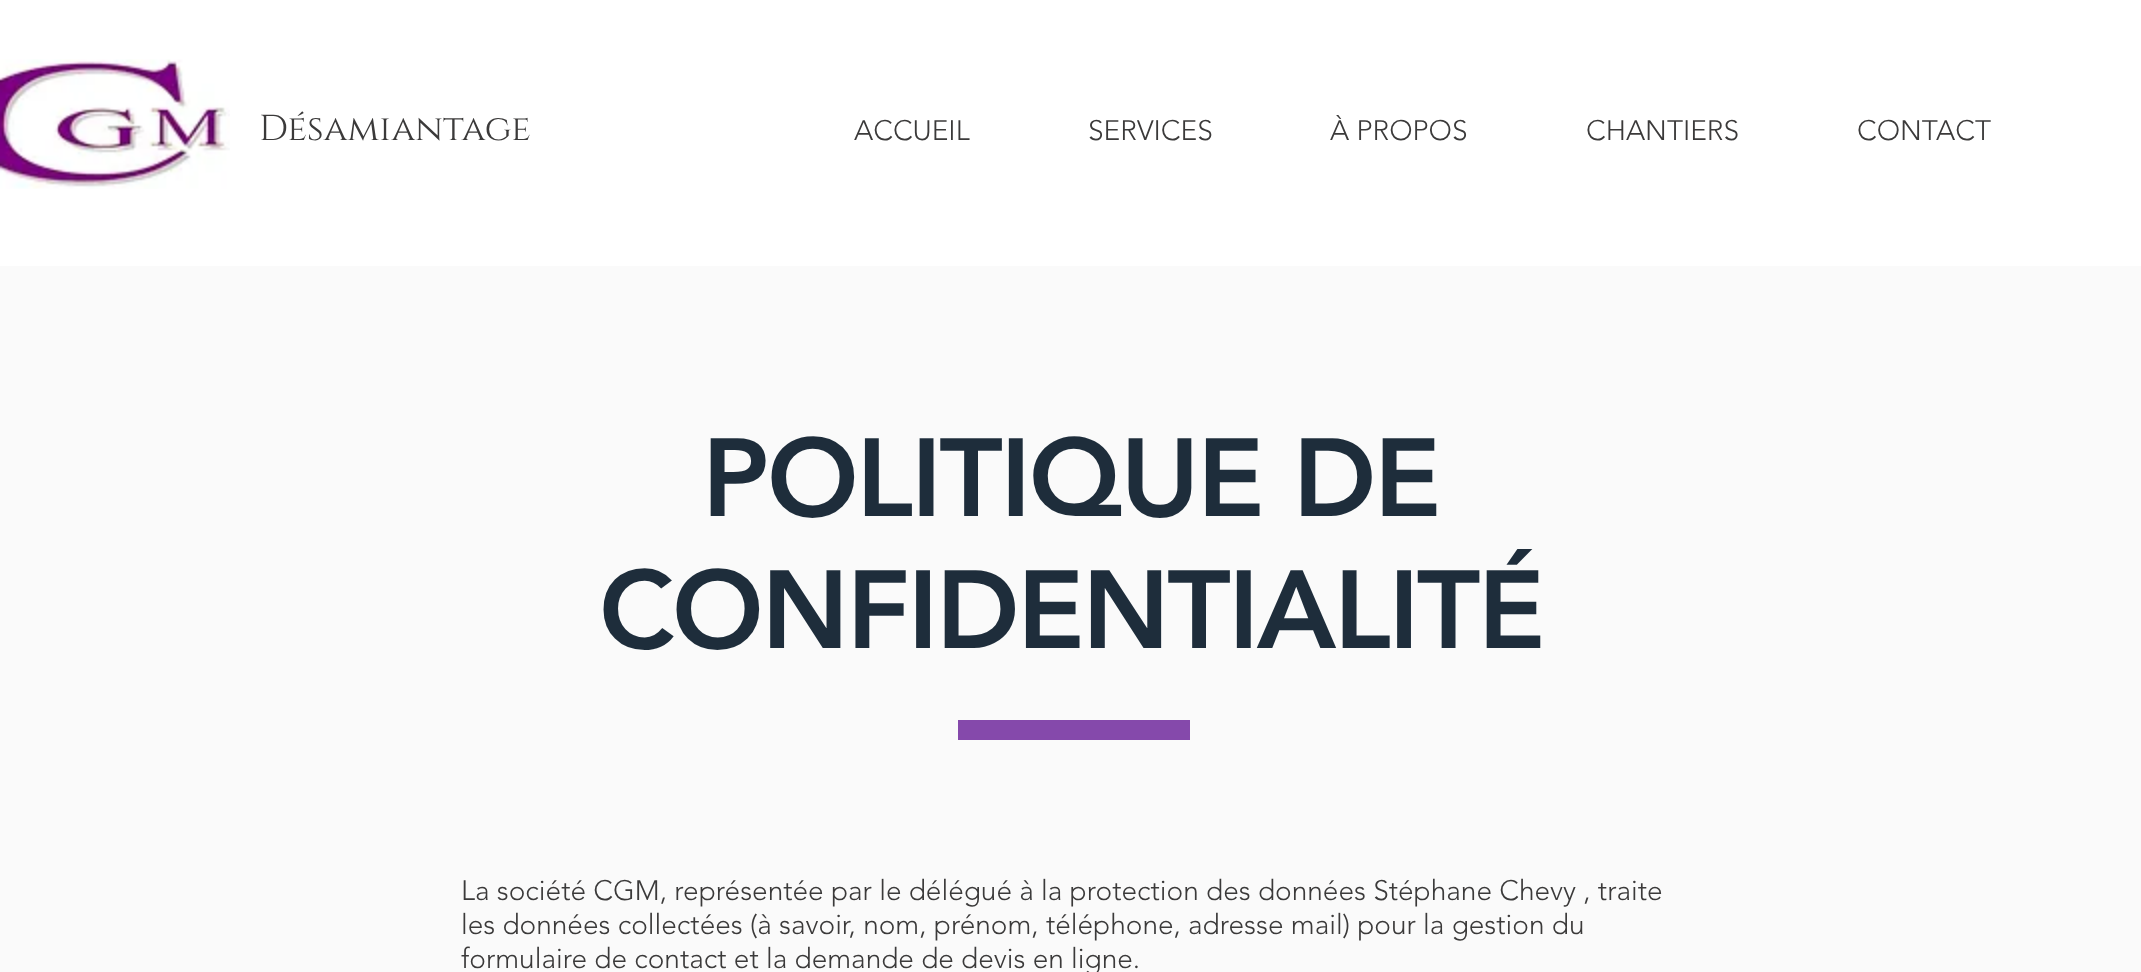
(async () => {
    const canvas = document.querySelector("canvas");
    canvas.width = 2141;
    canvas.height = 972;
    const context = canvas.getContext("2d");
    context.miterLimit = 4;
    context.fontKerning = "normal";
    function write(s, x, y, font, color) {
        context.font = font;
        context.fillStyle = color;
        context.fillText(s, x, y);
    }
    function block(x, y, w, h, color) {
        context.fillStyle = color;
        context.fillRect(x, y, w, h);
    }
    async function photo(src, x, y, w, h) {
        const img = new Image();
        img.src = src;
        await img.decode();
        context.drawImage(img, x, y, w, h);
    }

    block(0, 0, 2141, 972, "rgb(250, 250, 250)");
    block(0, 0, 2141, 266, "rgb(255, 255, 255)");
    await photo("media/1.png", 0, 59, 230, 130);
    write("Désamiantage", 259, 140, "36px Cinzel", "rgb(59, 58, 58)");
    write("ACCUEIL", 854, 140, "300 28px 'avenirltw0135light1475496'", "rgb(59, 58, 58)");
    write("SERVICES", 1088, 140, "300 28px 'avenirltw0135light1475496'", "rgb(59, 58, 58)");
    write("À PROPOS", 1330, 140, "300 28px 'avenirltw0135light1475496'", "rgb(59, 58, 58)");
    write("CHANTIERS", 1586, 140, "300 28px 'avenirltw0135light1475496'", "rgb(59, 58, 58)");
    write("CONTACT", 1857, 140, "300 28px 'avenirltw0135light1475496'", "rgb(59, 58, 58)");
    context.letterSpacing = "-2.25px";
    write("POLITIQUE DE", 702, 516, "900 110px 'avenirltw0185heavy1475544'", "rgb(30, 45, 59)");
    write("CONFIDENTIALITÉ", 599, 648, "900 110px 'avenirltw0185heavy1475544'", "rgb(30, 45, 59)");
    block(958, 720, 232, 20, "rgb(133, 73, 171)");
    context.letterSpacing = "0px";
    write("La société CGM, représentée par le délégué à la protection des données Stéphane Chevy , traite", 461, 900, "300 28px 'avenirltw0135light1475496'", "rgb(59, 58, 58)");
    write("les données collectées (à savoir, nom, prénom, téléphone, adresse mail) pour la gestion du", 461, 934, "300 28px 'avenirltw0135light1475496'", "rgb(59, 58, 58)");
    write("formulaire de contact et la demande de devis en ligne.", 461, 968, "300 28px 'avenirltw0135light1475496'", "rgb(59, 58, 58)");
})();
